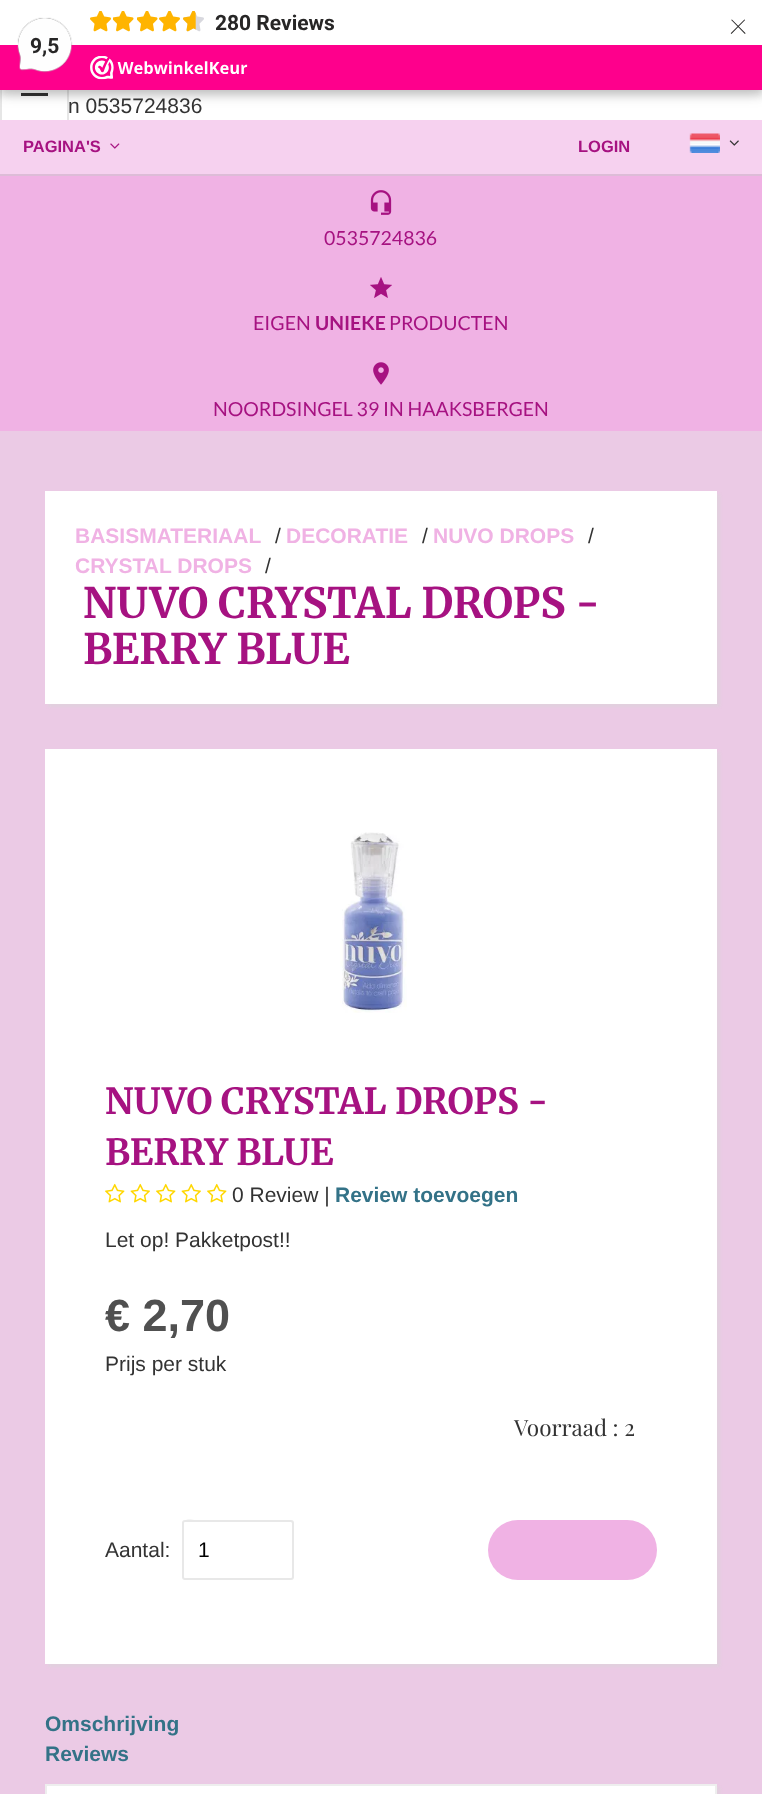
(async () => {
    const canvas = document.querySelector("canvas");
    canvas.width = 762;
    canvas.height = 1794;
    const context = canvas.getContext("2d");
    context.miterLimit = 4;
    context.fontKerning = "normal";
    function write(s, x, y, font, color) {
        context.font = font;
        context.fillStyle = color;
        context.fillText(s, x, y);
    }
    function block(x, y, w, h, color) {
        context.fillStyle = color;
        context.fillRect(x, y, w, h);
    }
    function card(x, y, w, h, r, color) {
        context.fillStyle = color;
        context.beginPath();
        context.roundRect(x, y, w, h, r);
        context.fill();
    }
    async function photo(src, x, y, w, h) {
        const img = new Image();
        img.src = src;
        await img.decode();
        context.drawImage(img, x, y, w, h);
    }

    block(0, 0, 762, 1794, "rgb(255, 255, 255)");
    context.strokeStyle = "rgb(230, 230, 230)";
    context.lineWidth = 2;
    context.strokeRect(1, 54, 67, 70);
    await photo("media/7.png", 21, 92, 27, 4);
    context.fillStyle = "rgba(0, 0, 0, 0.15)";
    context.filter = "blur(4.5px)";
    context.beginPath();
    context.rect(-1, -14, 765, 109);
    context.fill();
    context.filter = "none";
    context.filter = "blur(7.5px)";
    context.beginPath();
    context.rect(0, 3, 762, 90);
    context.fill();
    context.filter = "none";
    block(0, 0, 762, 45, "rgb(255, 255, 255)");
    await photo("media/1.png", 90, 11, 21, 21);
    await photo("media/2.png", 113, 11, 21, 21);
    await photo("media/2.png", 137, 11, 21, 21);
    await photo("media/1.png", 159, 11, 21, 21);
    await photo("media/3.png", 183, 11, 21, 21);
    await photo("media/4.png", 183, 11, 13, 21);
    write("280 Reviews", 215, 30, "bold 21px Roboto", "rgb(39, 38, 38)");
    write("×", 729, 34, "100 36px Roboto", "rgb(39, 38, 38)");
    block(0, 45, 762, 45, "rgb(254, 0, 140)");
    await photo("media/5.png", 17, 17, 56, 56);
    write("9,5", 30, 53, "bold 21px Roboto", "rgb(39, 38, 38)");
    await photo("media/6.png", 90, 56, 158, 24);
    write("n 0535724836", 68, 113, "21px Liberation Sans", "rgb(51, 51, 51)");
    block(0, 120, 762, 54, "rgb(246, 209, 239)");
    block(0, 174, 762, 2, "rgb(221, 188, 215)");
    write("PAGINA'S", 23, 152, "bold 16.5px Liberation Sans", "rgb(166, 18, 129)");
    await photo("media/8.png", 110, 143, 10, 6);
    write("LOGIN", 578, 152, "bold 16.5px Liberation Sans", "rgb(166, 18, 129)");
    await photo("media/9.png", 689, 133, 31, 20);
    await photo("media/10.png", 729, 140, 10, 6);
    block(0, 176, 762, 255, "rgb(240, 178, 228)");
    await photo("media/11.png", 370, 190, 22, 25);
    write("0535724836", 324, 245, "19.5px Lato", "rgb(166, 18, 129)");
    await photo("media/12.png", 370, 277, 22, 21);
    write("EIGEN", 253, 330, "19.5px Lato", "rgb(166, 18, 129)");
    write("UNIEKE", 315, 330, "bold 19.5px Lato", "rgb(166, 18, 129)");
    write("PRODUCTEN", 389, 330, "19.5px Lato", "rgb(166, 18, 129)");
    await photo("media/13.png", 373, 362, 16, 23);
    write("NOORDSINGEL 39 IN HAAKSBERGEN", 213, 416, "19.5px Lato", "rgb(166, 18, 129)");
    block(0, 431, 762, 1363, "rgb(235, 202, 229)");
    context.fillStyle = "rgba(215, 215, 215, 0.5)";
    context.filter = "blur(1.5px)";
    context.beginPath();
    context.rect(48, 494, 672, 213);
    context.fill();
    context.filter = "none";
    block(45, 491, 672, 213, "rgb(255, 255, 255)");
    write("BASISMATERIAAL", 75, 543, "bold 21px Liberation Sans", "rgb(240, 178, 228)");
    write("/", 275, 543, "21px Liberation Sans", "rgb(51, 51, 51)");
    write("DECORATIE", 286, 543, "bold 21px Liberation Sans", "rgb(240, 178, 228)");
    write("/", 422, 543, "21px Liberation Sans", "rgb(51, 51, 51)");
    write("NUVO DROPS", 433, 543, "bold 21px Liberation Sans", "rgb(240, 178, 228)");
    write("/", 588, 543, "21px Liberation Sans", "rgb(51, 51, 51)");
    write("CRYSTAL DROPS", 75, 573, "bold 21px Liberation Sans", "rgb(240, 178, 228)");
    write("/", 265, 573, "21px Liberation Sans", "rgb(51, 51, 51)");
    write("NUVO CRYSTAL DROPS -", 83, 618, "bold 42px Merriweather", "rgb(166, 18, 129)");
    write("BERRY BLUE", 83, 664, "bold 42px Merriweather", "rgb(166, 18, 129)");
    context.fillStyle = "rgba(215, 215, 215, 0.5)";
    context.filter = "blur(1.5px)";
    context.beginPath();
    context.rect(48, 752, 672, 915);
    context.fill();
    context.filter = "none";
    block(45, 749, 672, 915, "rgb(255, 255, 255)");
    await photo("media/14.png", 340, 832, 67, 181);
    write("NUVO CRYSTAL DROPS -", 105, 1114, "bold 36px Merriweather", "rgb(166, 18, 129)");
    write("BERRY BLUE", 105, 1165, "bold 36px Merriweather", "rgb(166, 18, 129)");
    await photo("media/15.png", 105, 1183, 20, 20);
    await photo("media/16.png", 130, 1183, 20, 20);
    await photo("media/15.png", 156, 1183, 20, 20);
    await photo("media/16.png", 181, 1183, 20, 20);
    await photo("media/15.png", 207, 1183, 20, 20);
    write("0 Review |", 232, 1202, "21px Liberation Sans", "rgb(51, 51, 51)");
    write("Review toevoegen", 335, 1202, "bold 21px Liberation Sans", "rgb(51, 114, 135)");
    write("Let op! Pakketpost!!", 105, 1247, "21px Liberation Sans", "rgb(51, 51, 51)");
    write("€ 2,70", 105, 1331, "bold 45px Liberation Sans", "rgb(80, 80, 80)");
    write("Prijs per stuk", 105, 1371, "21px Liberation Sans", "rgb(51, 51, 51)");
    write("Voorraad : 2", 514, 1436, "22.5px Playfair Display", "rgb(51, 51, 51)");
    write("Aantal:", 105, 1557, "21px Liberation Sans", "rgb(51, 51, 51)");
    context.fillStyle = "rgb(236, 236, 236)";
    context.beginPath();
    context.moveTo(184, 1522);
    context.lineTo(291, 1522);
    context.bezierCurveTo(292, 1522, 292, 1523, 292, 1524);
    context.lineTo(292, 1578);
    context.lineTo(293, 1576);
    context.lineTo(293, 1540);
    context.bezierCurveTo(293, 1516, 298, 1521, 274, 1521);
    context.lineTo(202, 1521);
    context.bezierCurveTo(197, 1521, 183, 1516, 183, 1524);
    context.closePath();
    context.fill();
    context.beginPath();
    context.roundRect(183, 1521, 110, 58, 2);
    context.strokeStyle = "rgb(232, 232, 232)";
    context.stroke();
    write("1", 198, 1557, "21px Liberation Sans", "rgb(0, 0, 0)");
    card(488, 1520, 169, 60, 30, "rgb(240, 178, 228)");
    write("Omschrijving", 45, 1731, "bold 21px Liberation Sans", "rgb(51, 114, 135)");
    write("Reviews", 45, 1761, "bold 21px Liberation Sans", "rgb(51, 114, 135)");
    context.fillStyle = "rgba(215, 215, 215, 0.5)";
    context.filter = "blur(1.5px)";
    context.beginPath();
    context.rect(48, 1787, 672, 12);
    context.fill();
    context.filter = "none";
    context.fillStyle = "rgb(255, 255, 255)";
    context.beginPath();
    context.rect(46, 1785, 670, 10);
    context.fill();
    context.strokeStyle = "rgb(238, 238, 238)";
    context.stroke();
})();
